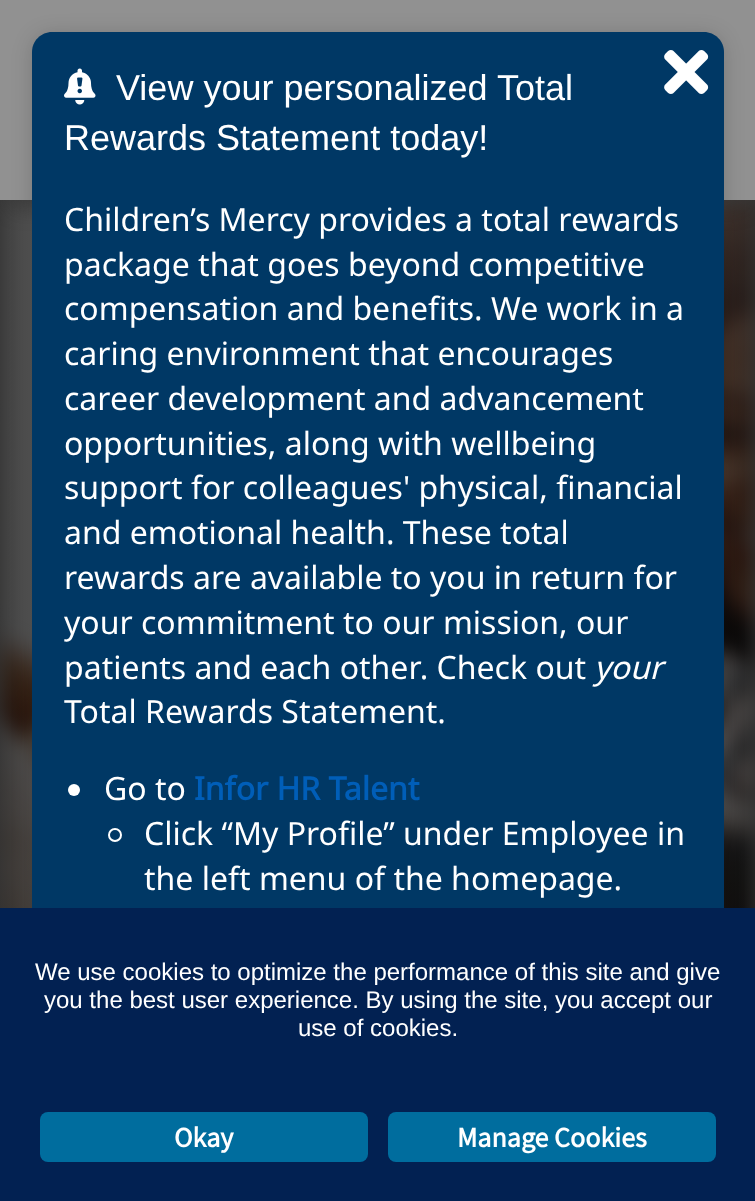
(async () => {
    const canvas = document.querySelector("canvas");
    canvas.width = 755;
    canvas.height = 1201;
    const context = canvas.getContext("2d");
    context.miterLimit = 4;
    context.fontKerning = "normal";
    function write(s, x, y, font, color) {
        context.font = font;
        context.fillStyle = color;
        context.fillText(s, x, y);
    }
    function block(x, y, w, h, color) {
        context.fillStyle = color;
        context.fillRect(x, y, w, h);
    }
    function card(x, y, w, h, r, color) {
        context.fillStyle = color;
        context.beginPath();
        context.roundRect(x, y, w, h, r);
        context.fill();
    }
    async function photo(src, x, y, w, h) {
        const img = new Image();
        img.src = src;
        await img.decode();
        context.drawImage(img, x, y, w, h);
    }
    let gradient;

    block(0, 0, 755, 1201, "rgb(135, 135, 135)");
    await photo("media/3.png", 0, 200, 755, 708);
    gradient = context.createLinearGradient(0, 750, 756, 750);
    gradient.addColorStop(0, "rgba(5, 5, 5, 0.6)");
    gradient.addColorStop(0.15, "rgba(5, 5, 5, 0)");
    gradient.addColorStop(0.85, "rgba(5, 5, 5, 0)");
    gradient.addColorStop(1, "rgba(5, 5, 5, 0.6)");
    context.fillStyle = gradient;
    context.fillRect(0, 200, 755, 708);
    context.fillStyle = "rgba(5, 5, 5, 0.2)";
    context.filter = "blur(10px)";
    context.beginPath();
    context.rect(10, 30, 736, 180);
    context.fill();
    context.filter = "none";
    block(0, 0, 755, 200, "rgb(145, 145, 145)");
    context.fillStyle = "rgba(0, 0, 0, 0.16)";
    context.filter = "blur(10px)";
    context.beginPath();
    context.roundRect(32, 34, 692, 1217, 20);
    context.fill();
    context.filter = "none";
    context.fillStyle = "rgb(0, 56, 101)";
    context.beginPath();
    context.moveTo(52, 32);
    context.lineTo(704, 32);
    context.bezierCurveTo(715, 32, 724, 41, 724, 52);
    context.lineTo(724, 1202);
    context.lineTo(32, 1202);
    context.lineTo(32, 52);
    context.bezierCurveTo(32, 41, 41, 32, 52, 32);
    context.closePath();
    context.fill();
    await photo("media/1.png", 64, 68, 32, 37);
    write("View your personalized Total", 116, 100, "36px Liberation Sans", "rgb(255, 255, 255)");
    write("Rewards Statement today!", 64, 150, "36px Liberation Sans", "rgb(255, 255, 255)");
    await photo("media/2.png", 664, 50, 45, 44);
    write("Children’s Mercy provides a total rewards", 64, 231, "32px Noto Sans", "rgb(255, 255, 255)");
    write("package that goes beyond competitive", 64, 276, "32px Noto Sans", "rgb(255, 255, 255)");
    write("compensation and benefits. We work in a", 64, 320, "32px Noto Sans", "rgb(255, 255, 255)");
    write("caring environment that encourages", 64, 365, "32px Noto Sans", "rgb(255, 255, 255)");
    write("career development and advancement", 64, 410, "32px Noto Sans", "rgb(255, 255, 255)");
    write("opportunities, along with wellbeing", 64, 455, "32px Noto Sans", "rgb(255, 255, 255)");
    write("support for colleagues' physical, financial", 64, 499, "32px Noto Sans", "rgb(255, 255, 255)");
    write("and emotional health. These total", 64, 544, "32px Noto Sans", "rgb(255, 255, 255)");
    write("rewards are available to you in return for", 64, 589, "32px Noto Sans", "rgb(255, 255, 255)");
    write("your commitment to our mission, our", 64, 634, "32px Noto Sans", "rgb(255, 255, 255)");
    write("patients and each other. Check out", 64, 679, "32px Noto Sans", "rgb(255, 255, 255)");
    write("your", 594, 679, "italic 32px Noto Sans", "rgb(255, 255, 255)");
    write("Total Rewards Statement.", 64, 723, "32px Noto Sans", "rgb(255, 255, 255)");
    context.beginPath();
    context.arc(74, 790, 6, 0, Math.PI * 2);
    context.fill();
    write("Go to", 104, 800, "32px Noto Sans", "rgb(255, 255, 255)");
    write("Infor HR Talent", 194, 800, "bold 32px Noto Sans", "rgb(0, 94, 184)");
    context.beginPath();
    context.arc(115, 835, 6, 0, Math.PI * 2);
    context.strokeStyle = "rgb(255, 255, 255)";
    context.lineWidth = 2;
    context.stroke();
    write("Click “My Profile” under Employee in", 144, 845, "32px Noto Sans", "rgb(255, 255, 255)");
    write("the left menu of the homepage.", 144, 890, "32px Noto Sans", "rgb(255, 255, 255)");
    block(0, 908, 755, 293, "rgb(2, 33, 82)");
    write("We use cookies to optimize the performance of this site and give", 35, 980, "24px Liberation Sans", "rgb(255, 255, 255)");
    write("you the best user experience. By using the site, you accept our", 44, 1008, "24px Liberation Sans", "rgb(255, 255, 255)");
    write("use of cookies.", 298, 1036, "24px Liberation Sans", "rgb(255, 255, 255)");
    card(40, 1112, 328, 50, 8, "rgb(0, 109, 158)");
    write("Okay", 174, 1147, "bold 28px Source Sans Pro", "rgb(255, 255, 255)");
    card(388, 1112, 328, 50, 8, "rgb(0, 109, 158)");
    write("Manage Cookies", 457, 1147, "bold 28px Source Sans Pro", "rgb(255, 255, 255)");
})();
